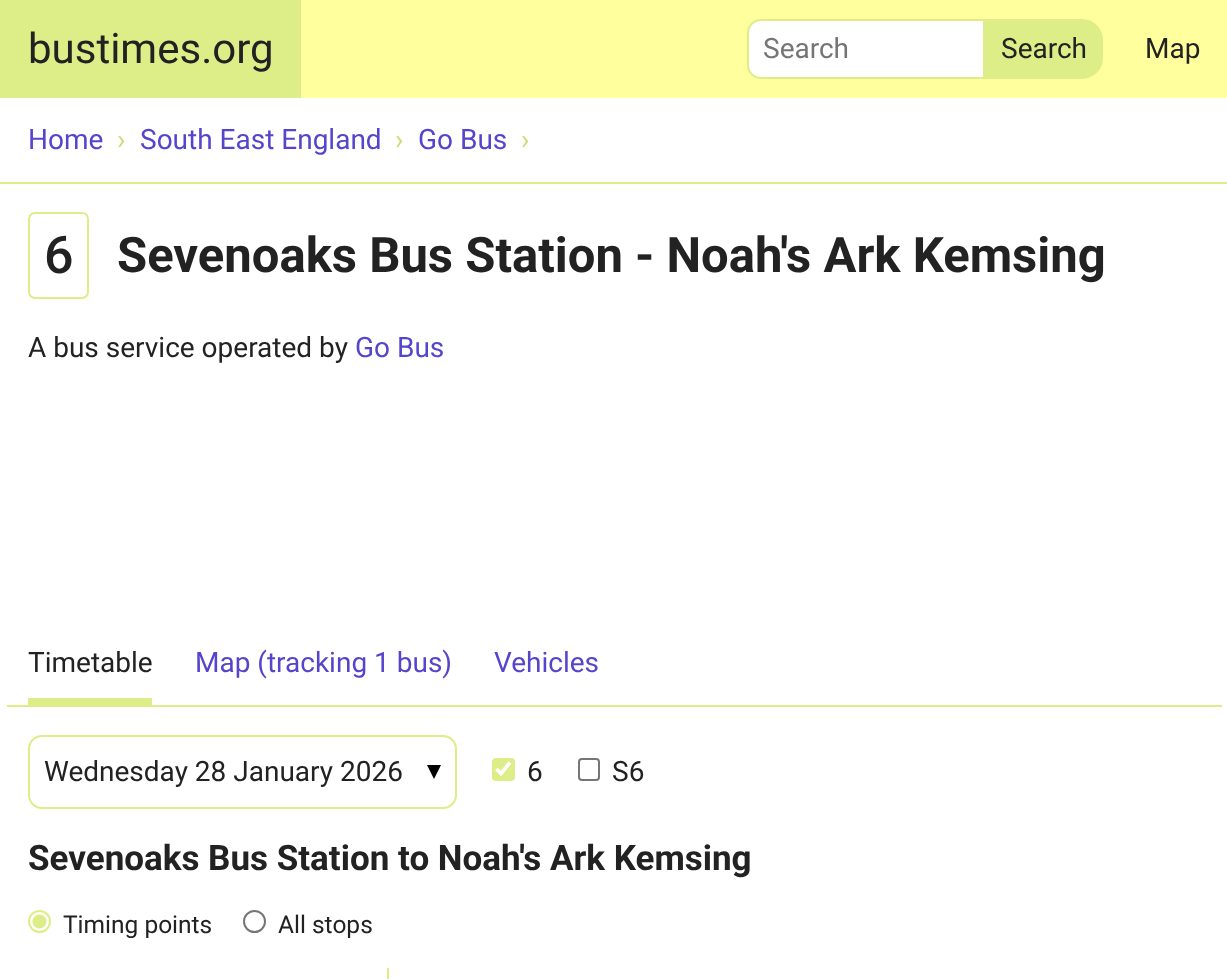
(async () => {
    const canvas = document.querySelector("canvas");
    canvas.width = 1227;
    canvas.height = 979;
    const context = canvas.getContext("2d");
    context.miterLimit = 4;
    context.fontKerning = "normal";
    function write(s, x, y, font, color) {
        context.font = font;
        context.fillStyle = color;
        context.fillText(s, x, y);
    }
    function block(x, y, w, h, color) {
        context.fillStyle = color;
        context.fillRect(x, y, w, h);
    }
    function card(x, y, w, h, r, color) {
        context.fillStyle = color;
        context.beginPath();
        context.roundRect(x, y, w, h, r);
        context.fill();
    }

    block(0, 0, 1227, 979, "rgb(255, 255, 255)");
    block(301, 0, 926, 98, "rgb(255, 255, 158)");
    block(0, 0, 301, 98, "rgb(221, 238, 136)");
    write("bustimes.org", 28, 63, "42px Roboto", "rgb(34, 34, 34)");
    context.fillStyle = "rgb(255, 255, 255)";
    context.beginPath();
    context.roundRect(748, 20, 236, 58, [13, 0, 0, 13]);
    context.fill();
    context.strokeStyle = "rgb(221, 238, 136)";
    context.lineWidth = 2;
    context.stroke();
    write("Search", 763, 58, "28px Roboto", "rgb(117, 117, 117)");
    context.fillStyle = "rgb(221, 238, 136)";
    context.beginPath();
    context.roundRect(986, 20, 116, 58, [0, 20, 20, 0]);
    context.fill();
    context.stroke();
    write("Search", 1001, 58, "28px Roboto", "rgb(34, 34, 34)");
    write("Map", 1145, 58, "28px Roboto", "rgb(34, 34, 34)");
    block(0, 182, 1227, 2, "rgb(221, 238, 136)");
    write("Home", 28, 149, "28px Roboto", "rgb(85, 68, 204)");
    write("›", 117, 149, "28px Roboto", "rgb(204, 221, 119)");
    write("South East England", 140, 149, "28px Roboto", "rgb(85, 68, 204)");
    write("›", 395, 149, "28px Roboto", "rgb(204, 221, 119)");
    write("Go Bus", 418, 149, "28px Roboto", "rgb(85, 68, 204)");
    write("›", 521, 149, "28px Roboto", "rgb(204, 221, 119)");
    context.beginPath();
    context.roundRect(29, 213, 59, 85, 6);
    context.stroke();
    write("6", 44, 273, "500 52px Roboto", "rgb(34, 34, 34)");
    write("Sevenoaks Bus Station - Noah's Ark Kemsing", 117, 272, "bold 49px Roboto", "rgb(34, 34, 34)");
    write("A bus service operated by", 28, 357, "28px Roboto", "rgb(34, 34, 34)");
    write("Go Bus", 355, 357, "28px Roboto", "rgb(85, 68, 204)");
    block(7, 705, 1215, 2, "rgb(221, 238, 136)");
    block(28, 698, 124, 7, "rgb(221, 238, 136)");
    write("Timetable", 28, 672, "28px Roboto", "rgb(34, 34, 34)");
    write("Map (tracking 1 bus)", 195, 672, "28px Roboto", "rgb(85, 68, 204)");
    write("Vehicles", 494, 672, "28px Roboto", "rgb(85, 68, 204)");
    context.fillStyle = "rgb(0, 0, 0)";
    context.beginPath();
    context.moveTo(427, 765);
    context.lineTo(434, 779);
    context.lineTo(441, 765);
    context.closePath();
    context.fill();
    context.beginPath();
    context.roundRect(29, 736, 427, 72, 13);
    context.stroke();
    write("Wednesday 28 January 2026", 44, 781, "28px Roboto", "rgb(34, 34, 34)");
    card(492, 758, 23, 23, 4, "rgb(221, 238, 136)");
    context.beginPath();
    context.moveTo(496.5, 769);
    context.lineTo(501, 773.5);
    context.lineTo(510, 762.5);
    context.strokeStyle = "rgb(255, 255, 255)";
    context.lineWidth = 3.6;
    context.stroke();
    write("6", 527, 781, "28px Roboto", "rgb(34, 34, 34)");
    context.beginPath();
    context.roundRect(579, 759, 20, 21, 3);
    context.strokeStyle = "rgb(118, 118, 118)";
    context.lineWidth = 2;
    context.stroke();
    write("S6", 612, 781, "28px Roboto", "rgb(34, 34, 34)");
    write("Sevenoaks Bus Station to Noah's Ark Kemsing", 28, 870, "bold 35px Roboto", "rgb(34, 34, 34)");
    context.beginPath();
    context.arc(39.5, 921.5, 10.5, 0, Math.PI * 2);
    context.strokeStyle = "rgb(221, 238, 136)";
    context.stroke();
    context.fillStyle = "rgb(221, 238, 136)";
    context.beginPath();
    context.arc(39.5, 921.5, 7, 0, Math.PI * 2);
    context.fill();
    write("Timing points", 63, 933, "24.5px Roboto", "rgb(34, 34, 34)");
    context.beginPath();
    context.arc(254.5, 921.5, 10.5, 0, Math.PI * 2);
    context.strokeStyle = "rgb(118, 118, 118)";
    context.stroke();
    write("All stops", 278, 933, "24.5px Roboto", "rgb(34, 34, 34)");
    block(387, 968, 2, 11, "rgb(221, 238, 136)");
})();
